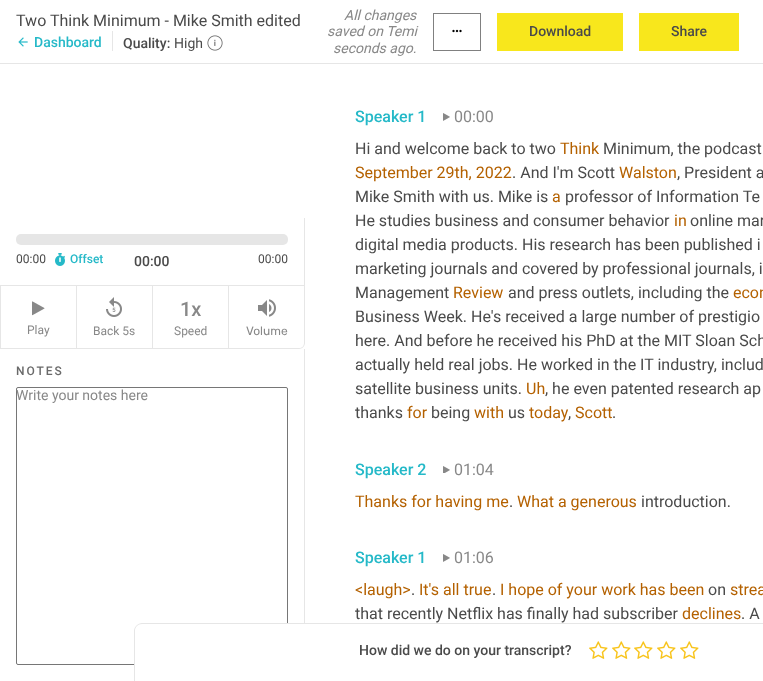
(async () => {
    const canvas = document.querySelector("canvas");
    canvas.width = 763;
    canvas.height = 681;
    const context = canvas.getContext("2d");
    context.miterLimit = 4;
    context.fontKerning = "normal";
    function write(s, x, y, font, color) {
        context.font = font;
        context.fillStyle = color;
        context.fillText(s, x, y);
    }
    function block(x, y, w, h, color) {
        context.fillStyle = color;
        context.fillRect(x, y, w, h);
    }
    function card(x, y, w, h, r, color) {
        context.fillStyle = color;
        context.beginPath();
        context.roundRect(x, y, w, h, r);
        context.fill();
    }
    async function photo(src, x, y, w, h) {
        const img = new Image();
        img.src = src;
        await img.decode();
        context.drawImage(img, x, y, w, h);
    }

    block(0, 0, 763, 681, "rgb(255, 255, 255)");
    block(0, 63, 763, 1, "rgb(230, 230, 230)");
    write("Two Think Minimum - Mike Smith edited", 16, 26, "16px Roboto", "rgb(74, 74, 74)");
    await photo("media/1.png", 18, 37, 10, 10);
    write("Dashboard", 34, 47, "500 14px Roboto", "rgb(37, 185, 200)");
    block(112, 31, 1, 20, "rgb(230, 230, 230)");
    write("Quality:", 123, 48, "500 14px Roboto", "rgb(74, 74, 74)");
    write("High", 174, 48, "14px Roboto", "rgb(74, 74, 74)");
    await photo("media/2.png", 207, 35, 16, 16);
    write("All changes", 344, 20, "italic 14px Roboto", "rgb(136, 136, 136)");
    write("saved on Temi", 327, 36, "italic 14px Roboto", "rgb(136, 136, 136)");
    write("seconds ago.", 333, 53, "italic 14px Roboto", "rgb(136, 136, 136)");
    context.strokeStyle = "rgb(128, 128, 128)";
    context.strokeRect(433.5, 13.5, 47, 37);
    await photo("media/3.png", 452, 29, 10, 4);
    block(497, 13, 126, 38, "rgb(248, 231, 28)");
    write("Download", 529, 36, "500 14px Roboto", "rgb(74, 74, 74)");
    block(639, 13, 100, 38, "rgb(248, 231, 28)");
    write("Share", 671, 36, "500 14px Roboto", "rgb(74, 74, 74)");
    block(304, 218, 1, 67, "rgb(230, 230, 230)");
    card(16, 234, 272, 11, 5, "rgb(230, 230, 230)");
    write("00:00", 16, 263, "12px Roboto", "rgb(74, 74, 74)");
    await photo("media/4.png", 55, 253, 10, 13);
    write("Offset", 70, 263, "500 12px Roboto", "rgb(37, 185, 200)");
    write("00:00", 134, 266, "500 14px Roboto", "rgb(74, 74, 74)");
    write("00:00", 258, 263, "12px Roboto", "rgb(74, 74, 74)");
    context.strokeStyle = "rgb(230, 230, 230)";
    context.strokeRect(0.5, 285.5, 76, 63);
    await photo("media/5.png", 32, 301, 13, 15);
    write("Play", 27, 334, "12px Roboto", "rgb(136, 136, 136)");
    block(77, 285, 152, 1, "rgb(230, 230, 230)");
    block(152, 285, 1, 64, "rgb(230, 230, 230)");
    block(77, 348, 76, 1, "rgb(230, 230, 230)");
    await photo("media/6.png", 106, 297, 16, 20);
    write("Back 5s", 93, 335, "12px Roboto", "rgb(136, 136, 136)");
    block(228, 285, 1, 64, "rgb(230, 230, 230)");
    block(153, 348, 76, 1, "rgb(230, 230, 230)");
    write("1x", 180, 316, "500 20px Roboto", "rgb(136, 136, 136)");
    write("Speed", 174, 335, "12px Roboto", "rgb(136, 136, 136)");
    context.fillStyle = "rgb(230, 230, 230)";
    context.beginPath();
    context.moveTo(229, 285);
    context.lineTo(305, 285);
    context.lineTo(305, 343);
    context.bezierCurveTo(305, 346, 302, 349, 299, 349);
    context.lineTo(229, 349);
    context.closePath();
    context.moveTo(229, 286);
    context.lineTo(304, 286);
    context.lineTo(304, 343);
    context.bezierCurveTo(304, 346, 302, 348, 299, 348);
    context.lineTo(229, 348);
    context.closePath();
    context.fill("evenodd");
    await photo("media/7.png", 258, 299, 18, 18);
    write("Volume", 246, 335, "12px Rubik", "rgb(136, 136, 136)");
    block(304, 349, 1, 274, "rgb(230, 230, 230)");
    context.letterSpacing = "2px";
    write("NOTES", 16, 375, "500 12px Roboto", "rgb(106, 106, 106)");
    context.beginPath();
    context.roundRect(16.5, 387.5, 271, 277, 1.5);
    context.strokeStyle = "rgb(118, 118, 118)";
    context.stroke();
    context.letterSpacing = "0px";
    write("Write your notes here", 16, 400, "14px Roboto", "rgb(136, 136, 136)");
    write("Speaker 1", 355, 122, "500 16px Roboto", "rgb(37, 185, 200)");
    await photo("media/8.png", 443, 113, 7, 8);
    write("00:00", 454, 122, "16px Roboto", "rgb(136, 136, 136)");
    write("Hi and welcome back to two", 355, 154, "16px Roboto", "rgb(74, 74, 74)");
    write("Think", 560, 154, "16px Roboto", "rgb(180, 97, 0)");
    write("Minimum, the podcast", 603, 154, "16px Roboto", "rgb(74, 74, 74)");
    write("September 29th, 2022", 355, 178, "16px Roboto", "rgb(180, 97, 0)");
    write(". And I'm Scott", 512, 178, "16px Roboto", "rgb(74, 74, 74)");
    write("Walston", 619, 178, "16px Roboto", "rgb(180, 97, 0)");
    write(", President a", 677, 178, "16px Roboto", "rgb(74, 74, 74)");
    write("Mike Smith with us. Mike is", 355, 202, "16px Roboto", "rgb(74, 74, 74)");
    write("a", 552, 202, "16px Roboto", "rgb(180, 97, 0)");
    write("professor of Information Te", 565, 202, "16px Roboto", "rgb(74, 74, 74)");
    write("He studies business and consumer behavior", 355, 226, "16px Roboto", "rgb(74, 74, 74)");
    write("in", 674, 226, "16px Roboto", "rgb(180, 97, 0)");
    write("online mar", 690, 226, "16px Roboto", "rgb(74, 74, 74)");
    write("digital media products. His research has been published i", 355, 250, "16px Roboto", "rgb(74, 74, 74)");
    write("marketing journals and covered by professional journals, i", 355, 274, "16px Roboto", "rgb(74, 74, 74)");
    write("Management", 355, 298, "16px Roboto", "rgb(74, 74, 74)");
    write("Review", 453, 298, "16px Roboto", "rgb(180, 97, 0)");
    write("and press outlets, including the", 508, 298, "16px Roboto", "rgb(74, 74, 74)");
    write("econ", 733, 298, "16px Roboto", "rgb(180, 97, 0)");
    write("Business Week. He's received a large number of prestigio", 355, 322, "16px Roboto", "rgb(74, 74, 74)");
    write("here. And before he received his PhD at the MIT Sloan Sch", 355, 346, "16px Roboto", "rgb(74, 74, 74)");
    write("actually held real jobs. He worked in the IT industry, includ", 355, 370, "16px Roboto", "rgb(74, 74, 74)");
    write("satellite business units.", 355, 394, "16px Roboto", "rgb(74, 74, 74)");
    write("Uh", 526, 394, "16px Roboto", "rgb(180, 97, 0)");
    write(", he even patented research ap", 545, 394, "16px Roboto", "rgb(74, 74, 74)");
    write("thanks", 355, 418, "16px Roboto", "rgb(74, 74, 74)");
    write("for", 407, 418, "16px Roboto", "rgb(180, 97, 0)");
    write("being", 431, 418, "16px Roboto", "rgb(74, 74, 74)");
    write("with", 474, 418, "16px Roboto", "rgb(180, 97, 0)");
    write("us", 508, 418, "16px Roboto", "rgb(74, 74, 74)");
    write("today", 529, 418, "16px Roboto", "rgb(180, 97, 0)");
    write(",", 568, 418, "16px Roboto", "rgb(74, 74, 74)");
    write("Scott", 575, 418, "16px Roboto", "rgb(180, 97, 0)");
    write(".", 612, 418, "16px Roboto", "rgb(74, 74, 74)");
    write("Speaker 2", 355, 475, "500 16px Roboto", "rgb(37, 185, 200)");
    await photo("media/9.png", 443, 466, 7, 7);
    write("01:04", 454, 475, "16px Roboto", "rgb(136, 136, 136)");
    write("Thanks for having me", 355, 507, "16px Roboto", "rgb(180, 97, 0)");
    write(".", 509, 507, "16px Roboto", "rgb(74, 74, 74)");
    write("What a generous", 517, 507, "16px Roboto", "rgb(180, 97, 0)");
    write("introduction.", 641, 507, "16px Roboto", "rgb(74, 74, 74)");
    write("Speaker 1", 355, 563, "500 16px Roboto", "rgb(37, 185, 200)");
    await photo("media/8.png", 443, 554, 7, 8);
    write("01:06", 454, 563, "16px Roboto", "rgb(136, 136, 136)");
    write("<laugh>", 355, 595, "16px Roboto", "rgb(180, 97, 0)");
    write(".", 411, 595, "16px Roboto", "rgb(74, 74, 74)");
    write("It's all true", 419, 595, "16px Roboto", "rgb(180, 97, 0)");
    write(".", 492, 595, "16px Roboto", "rgb(74, 74, 74)");
    write("I hope of your work has been", 500, 595, "16px Roboto", "rgb(180, 97, 0)");
    write("on", 708, 595, "16px Roboto", "rgb(74, 74, 74)");
    write("strea", 730, 595, "16px Roboto", "rgb(180, 97, 0)");
    write("that recently Netflix has finally had subscriber", 355, 619, "16px Roboto", "rgb(74, 74, 74)");
    write("declines", 682, 619, "16px Roboto", "rgb(180, 97, 0)");
    write(". A", 741, 619, "16px Roboto", "rgb(74, 74, 74)");
    context.fillStyle = "rgb(255, 255, 255)";
    context.beginPath();
    context.moveTo(142, 624);
    context.lineTo(763, 624);
    context.bezierCurveTo(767, 624, 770, 627, 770, 631);
    context.lineTo(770, 681);
    context.lineTo(135, 681);
    context.lineTo(135, 631);
    context.bezierCurveTo(135, 627, 138, 624, 142, 624);
    context.closePath();
    context.fill();
    context.fillStyle = "rgb(230, 230, 230)";
    context.beginPath();
    context.moveTo(142, 623);
    context.lineTo(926, 623);
    context.bezierCurveTo(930, 623, 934, 627, 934, 631);
    context.lineTo(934, 681);
    context.lineTo(134, 681);
    context.lineTo(134, 631);
    context.bezierCurveTo(134, 627, 138, 623, 142, 623);
    context.closePath();
    context.moveTo(142, 624);
    context.lineTo(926, 624);
    context.bezierCurveTo(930, 624, 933, 627, 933, 631);
    context.lineTo(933, 681);
    context.lineTo(135, 681);
    context.lineTo(135, 631);
    context.bezierCurveTo(135, 627, 138, 624, 142, 624);
    context.closePath();
    context.fill("evenodd");
    write("How did we do on your transcript?", 359, 655, "500 14px Roboto", "rgb(74, 74, 74)");
    await photo("media/10.png", 589, 641, 19, 18);
    await photo("media/10.png", 612, 641, 19, 18);
    await photo("media/10.png", 634, 641, 19, 18);
    await photo("media/10.png", 657, 641, 19, 18);
    await photo("media/10.png", 680, 641, 19, 18);
})();
